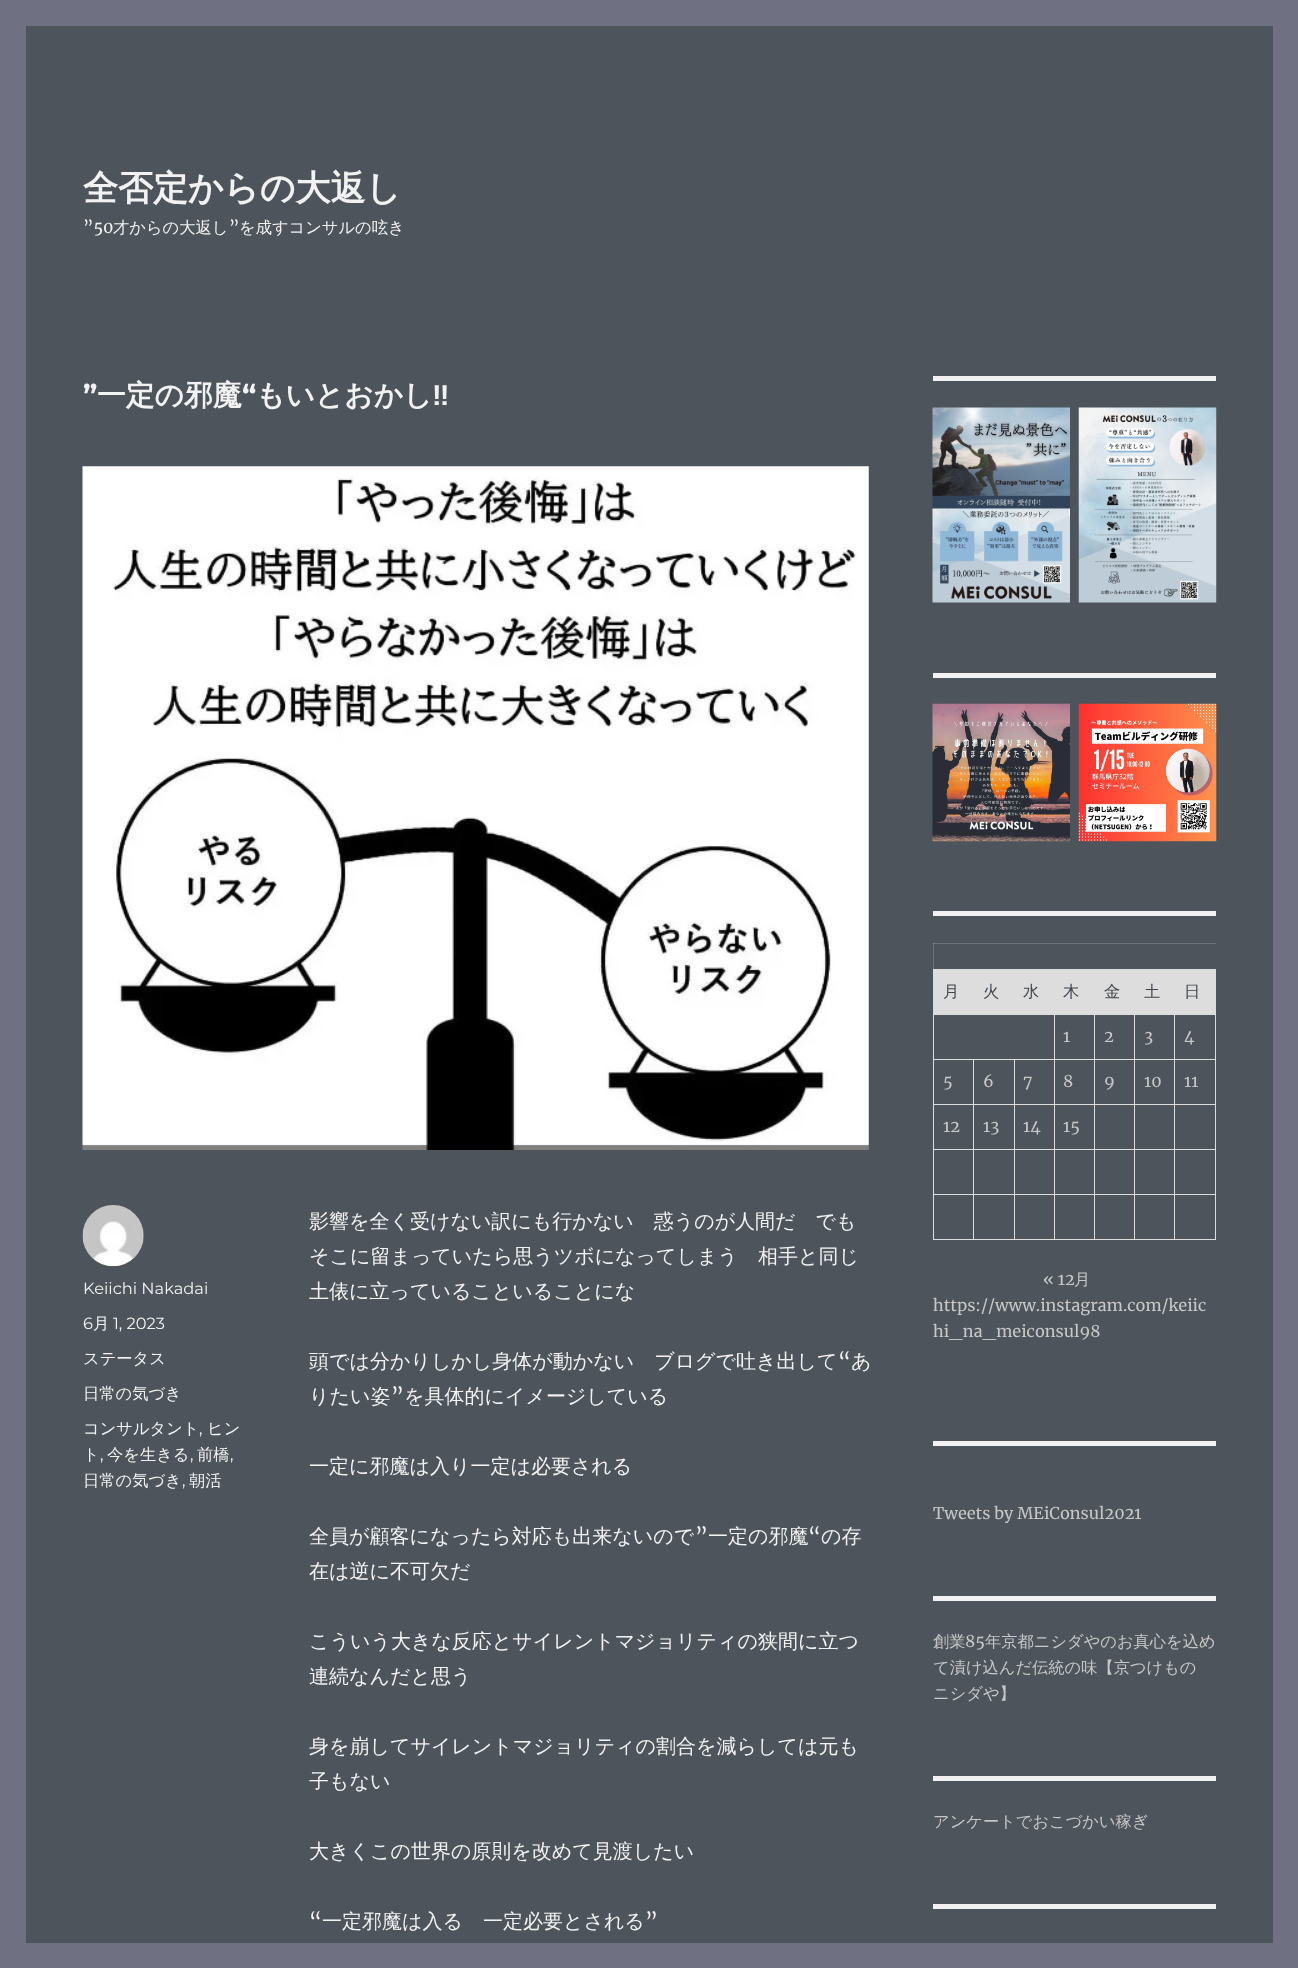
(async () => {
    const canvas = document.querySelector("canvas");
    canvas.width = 1298;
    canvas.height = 1968;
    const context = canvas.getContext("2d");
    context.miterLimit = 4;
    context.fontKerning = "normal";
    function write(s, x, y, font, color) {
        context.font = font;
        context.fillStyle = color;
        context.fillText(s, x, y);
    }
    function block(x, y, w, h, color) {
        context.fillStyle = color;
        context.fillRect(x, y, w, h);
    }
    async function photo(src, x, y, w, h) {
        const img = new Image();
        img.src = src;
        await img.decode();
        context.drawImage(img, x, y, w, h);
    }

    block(0, 0, 1298, 1968, "rgb(111, 112, 130)");
    block(26, 26, 1247, 1917, "rgb(77, 84, 92)");
    block(933, 943, 1, 26, "rgb(110, 116, 122)");
    write("全否定からの大返し", 83, 200, "bold 35px WenQuanYi Zen Hei", "rgb(242, 242, 242)");
    write("”50", 83, 233, "16.25px Merriweather", "rgb(242, 242, 242)");
    write("才からの大返し", 113, 233, "500 16.25px WenQuanYi Zen Hei", "rgb(242, 242, 242)");
    write("”", 229, 233, "16.25px Merriweather", "rgb(242, 242, 242)");
    write("を成すコンサルの呟き", 239, 233, "500 16.25px WenQuanYi Zen Hei", "rgb(242, 242, 242)");
    write("”", 83, 405, "100 28.75px 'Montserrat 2'", "rgb(242, 242, 242)");
    write("一定の邪魔", 97, 405, "bold 28.75px WenQuanYi Zen Hei", "rgb(242, 242, 242)");
    write("“", 242, 405, "100 28.75px 'Montserrat 2'", "rgb(242, 242, 242)");
    write("もいとおかし", 256, 405, "bold 28.75px WenQuanYi Zen Hei", "rgb(242, 242, 242)");
    write("‼︎", 432, 405, "bold 28.75px Liberation Sans", "rgb(242, 242, 242)");
    await photo("media/1.png", 82, 466, 787, 684);
    await photo("media/2.png", 82, 1205, 62, 62);
    write("Keiichi Nakadai", 83, 1294, "100 16.25px Montserrat", "rgb(242, 242, 242)");
    write("6", 83, 1329, "100 16.25px Montserrat", "rgb(242, 242, 242)");
    write("月", 93, 1329, "500 16.25px WenQuanYi Zen Hei", "rgb(242, 242, 242)");
    write("1, 2023", 113, 1329, "100 16.25px Montserrat", "rgb(242, 242, 242)");
    write("ステータス", 83, 1364, "500 16.25px WenQuanYi Zen Hei", "rgb(242, 242, 242)");
    write("日常の気づき", 83, 1399, "500 16.25px WenQuanYi Zen Hei", "rgb(242, 242, 242)");
    write("コンサルタント", 83, 1434, "500 16.25px WenQuanYi Zen Hei", "rgb(242, 242, 242)");
    write(",", 199, 1434, "100 16.25px Montserrat", "rgb(242, 242, 242)");
    write("ヒン", 207, 1434, "500 16.25px WenQuanYi Zen Hei", "rgb(242, 242, 242)");
    write("ト", 83, 1460, "500 16.25px WenQuanYi Zen Hei", "rgb(242, 242, 242)");
    write(",", 100, 1460, "100 16.25px Montserrat", "rgb(242, 242, 242)");
    write("今を生きる", 107, 1460, "500 16.25px WenQuanYi Zen Hei", "rgb(242, 242, 242)");
    write(",", 190, 1460, "100 16.25px Montserrat", "rgb(242, 242, 242)");
    write("前橋", 197, 1460, "500 16.25px WenQuanYi Zen Hei", "rgb(242, 242, 242)");
    write(",", 230, 1460, "100 16.25px Montserrat", "rgb(242, 242, 242)");
    write("日常の気づき", 83, 1486, "500 16.25px WenQuanYi Zen Hei", "rgb(242, 242, 242)");
    write(",", 182, 1486, "100 16.25px Montserrat", "rgb(242, 242, 242)");
    write("朝活", 189, 1486, "500 16.25px WenQuanYi Zen Hei", "rgb(242, 242, 242)");
    write("影響を全く受けない訳にも行かない　惑うのが人間だ　でも", 309, 1228, "500 20px WenQuanYi Zen Hei", "rgb(242, 242, 242)");
    write("そこに留まっていたら思うツボになってしまう　相手と同じ", 309, 1263, "500 20px WenQuanYi Zen Hei", "rgb(242, 242, 242)");
    write("土俵に立っていることいることにな", 309, 1298, "500 20px WenQuanYi Zen Hei", "rgb(242, 242, 242)");
    write("頭では分かりしかし身体が動かない　ブログで吐き出して", 309, 1368, "500 20px WenQuanYi Zen Hei", "rgb(242, 242, 242)");
    write("“", 838, 1368, "20px Merriweather", "rgb(242, 242, 242)");
    write("あ", 851, 1368, "500 20px WenQuanYi Zen Hei", "rgb(242, 242, 242)");
    write("りたい姿", 309, 1403, "500 20px WenQuanYi Zen Hei", "rgb(242, 242, 242)");
    write("”", 391, 1403, "20px Merriweather", "rgb(242, 242, 242)");
    write("を具体的にイメージしている", 404, 1403, "500 20px WenQuanYi Zen Hei", "rgb(242, 242, 242)");
    write("一定に邪魔は入り一定は必要される", 309, 1473, "500 20px WenQuanYi Zen Hei", "rgb(242, 242, 242)");
    write("全員が顧客になったら対応も出来ないので", 309, 1543, "500 20px WenQuanYi Zen Hei", "rgb(242, 242, 242)");
    write("”", 695, 1543, "20px Merriweather", "rgb(242, 242, 242)");
    write("一定の邪魔", 708, 1543, "500 20px WenQuanYi Zen Hei", "rgb(242, 242, 242)");
    write("“", 808, 1543, "20px Merriweather", "rgb(242, 242, 242)");
    write("の存", 821, 1543, "500 20px WenQuanYi Zen Hei", "rgb(242, 242, 242)");
    write("在は逆に不可欠だ", 309, 1578, "500 20px WenQuanYi Zen Hei", "rgb(242, 242, 242)");
    write("こういう大きな反応とサイレントマジョリティの狭間に立つ", 309, 1648, "500 20px WenQuanYi Zen Hei", "rgb(242, 242, 242)");
    write("連続なんだと思う", 309, 1683, "500 20px WenQuanYi Zen Hei", "rgb(242, 242, 242)");
    write("身を崩してサイレントマジョリティの割合を減らしては元も", 309, 1753, "500 20px WenQuanYi Zen Hei", "rgb(242, 242, 242)");
    write("子もない", 309, 1788, "500 20px WenQuanYi Zen Hei", "rgb(242, 242, 242)");
    write("大きくこの世界の原則を改めて見渡したい", 309, 1858, "500 20px WenQuanYi Zen Hei", "rgb(242, 242, 242)");
    write("“", 309, 1928, "20px Merriweather", "rgb(242, 242, 242)");
    write("一定邪魔は入る　一定必要とされる", 322, 1928, "500 20px WenQuanYi Zen Hei", "rgb(242, 242, 242)");
    write("”", 645, 1928, "20px Merriweather", "rgb(242, 242, 242)");
    block(933, 376, 283, 5, "rgb(242, 242, 242)");
    await photo("media/3.png", 932, 407, 138, 196);
    await photo("media/4.png", 1078, 407, 139, 196);
    block(933, 673, 283, 5, "rgb(242, 242, 242)");
    await photo("media/5.png", 932, 703, 138, 139);
    await photo("media/6.png", 1078, 703, 139, 139);
    block(933, 911, 283, 5, "rgb(242, 242, 242)");
    block(933, 943, 283, 1, "rgb(110, 116, 122)");
    block(933, 943, 1, 1, "rgb(136, 141, 146)");
    block(934, 970, 40, 44, "rgb(221, 221, 221)");
    block(933, 969, 41, 1, "rgb(221, 221, 221)");
    block(1174, 1014, 42, 1, "rgb(221, 221, 221)");
    block(1174, 1059, 42, 1, "rgb(221, 221, 221)");
    block(1174, 1104, 42, 1, "rgb(221, 221, 221)");
    block(1174, 1149, 42, 1, "rgb(221, 221, 221)");
    block(1174, 1194, 42, 1, "rgb(221, 221, 221)");
    block(1215, 1194, 1, 46, "rgb(221, 221, 221)");
    block(1174, 1239, 42, 1, "rgb(221, 221, 221)");
    block(1174, 1194, 1, 46, "rgb(221, 221, 221)");
    block(1134, 1194, 41, 1, "rgb(221, 221, 221)");
    block(1174, 1149, 1, 46, "rgb(221, 221, 221)");
    block(1134, 1149, 41, 1, "rgb(221, 221, 221)");
    block(1174, 1104, 1, 46, "rgb(221, 221, 221)");
    block(1134, 1104, 41, 1, "rgb(221, 221, 221)");
    block(1174, 1059, 1, 46, "rgb(221, 221, 221)");
    block(1134, 1059, 41, 1, "rgb(221, 221, 221)");
    block(1174, 1014, 1, 46, "rgb(221, 221, 221)");
    block(1134, 1014, 41, 1, "rgb(221, 221, 221)");
    block(1134, 1239, 41, 1, "rgb(221, 221, 221)");
    block(1134, 1194, 1, 46, "rgb(221, 221, 221)");
    block(1094, 1194, 41, 1, "rgb(221, 221, 221)");
    block(1134, 1149, 1, 46, "rgb(221, 221, 221)");
    block(1094, 1149, 41, 1, "rgb(221, 221, 221)");
    block(1134, 1104, 1, 46, "rgb(221, 221, 221)");
    block(1094, 1104, 41, 1, "rgb(221, 221, 221)");
    block(1134, 1059, 1, 46, "rgb(221, 221, 221)");
    block(1094, 1059, 41, 1, "rgb(221, 221, 221)");
    block(1134, 1014, 1, 46, "rgb(221, 221, 221)");
    block(1094, 1014, 41, 1, "rgb(221, 221, 221)");
    block(1094, 1239, 41, 1, "rgb(221, 221, 221)");
    block(1094, 1194, 1, 46, "rgb(221, 221, 221)");
    block(1054, 1194, 41, 1, "rgb(221, 221, 221)");
    block(1094, 1149, 1, 46, "rgb(221, 221, 221)");
    block(1054, 1149, 41, 1, "rgb(221, 221, 221)");
    block(1094, 1104, 1, 46, "rgb(221, 221, 221)");
    block(1054, 1104, 41, 1, "rgb(221, 221, 221)");
    block(1094, 1059, 1, 46, "rgb(221, 221, 221)");
    block(1054, 1059, 41, 1, "rgb(221, 221, 221)");
    block(1094, 1014, 1, 46, "rgb(221, 221, 221)");
    block(1054, 1014, 41, 1, "rgb(221, 221, 221)");
    block(1054, 1239, 41, 1, "rgb(221, 221, 221)");
    block(1054, 1194, 1, 46, "rgb(221, 221, 221)");
    block(1014, 1194, 41, 1, "rgb(221, 221, 221)");
    block(1054, 1149, 1, 46, "rgb(221, 221, 221)");
    block(1014, 1149, 41, 1, "rgb(221, 221, 221)");
    block(1054, 1104, 1, 46, "rgb(221, 221, 221)");
    block(1014, 1104, 41, 1, "rgb(221, 221, 221)");
    block(1054, 1059, 1, 46, "rgb(221, 221, 221)");
    block(1014, 1059, 41, 1, "rgb(221, 221, 221)");
    block(1054, 1014, 1, 46, "rgb(221, 221, 221)");
    block(933, 1014, 122, 1, "rgb(221, 221, 221)");
    block(1014, 1239, 41, 1, "rgb(221, 221, 221)");
    block(1014, 1194, 1, 46, "rgb(221, 221, 221)");
    block(973, 1194, 42, 1, "rgb(221, 221, 221)");
    block(1014, 1149, 1, 46, "rgb(221, 221, 221)");
    block(973, 1149, 42, 1, "rgb(221, 221, 221)");
    block(1014, 1104, 1, 46, "rgb(221, 221, 221)");
    block(973, 1104, 42, 1, "rgb(221, 221, 221)");
    block(1014, 1059, 1, 46, "rgb(221, 221, 221)");
    block(973, 1059, 42, 1, "rgb(221, 221, 221)");
    block(973, 1239, 42, 1, "rgb(221, 221, 221)");
    block(973, 1194, 1, 46, "rgb(221, 221, 221)");
    block(933, 1194, 41, 1, "rgb(221, 221, 221)");
    block(973, 1149, 1, 46, "rgb(221, 221, 221)");
    block(933, 1149, 41, 1, "rgb(221, 221, 221)");
    block(973, 1104, 1, 46, "rgb(221, 221, 221)");
    block(933, 1104, 41, 1, "rgb(221, 221, 221)");
    block(973, 1059, 1, 46, "rgb(221, 221, 221)");
    block(933, 1059, 41, 1, "rgb(221, 221, 221)");
    block(933, 1239, 41, 1, "rgb(221, 221, 221)");
    block(933, 1194, 1, 46, "rgb(221, 221, 221)");
    block(933, 1149, 1, 46, "rgb(221, 221, 221)");
    block(933, 1104, 1, 46, "rgb(221, 221, 221)");
    block(933, 1059, 1, 46, "rgb(221, 221, 221)");
    block(933, 1014, 1, 46, "rgb(221, 221, 221)");
    block(933, 969, 1, 46, "rgb(221, 221, 221)");
    write("月", 943, 997, "500 16.25px WenQuanYi Zen Hei", "rgb(64, 70, 77)");
    block(974, 969, 201, 45, "rgb(221, 221, 221)");
    write("火", 983, 997, "500 16.25px WenQuanYi Zen Hei", "rgb(64, 70, 77)");
    write("水", 1023, 997, "500 16.25px WenQuanYi Zen Hei", "rgb(64, 70, 77)");
    write("木", 1063, 997, "500 16.25px WenQuanYi Zen Hei", "rgb(64, 70, 77)");
    write("金", 1104, 997, "500 16.25px WenQuanYi Zen Hei", "rgb(64, 70, 77)");
    write("土", 1144, 997, "500 16.25px WenQuanYi Zen Hei", "rgb(64, 70, 77)");
    block(1175, 970, 40, 44, "rgb(221, 221, 221)");
    block(1174, 969, 42, 1, "rgb(221, 221, 221)");
    block(1215, 1149, 1, 46, "rgb(221, 221, 221)");
    block(1215, 1104, 1, 46, "rgb(221, 221, 221)");
    block(1215, 1059, 1, 46, "rgb(221, 221, 221)");
    block(1215, 1014, 1, 46, "rgb(221, 221, 221)");
    block(1215, 969, 1, 46, "rgb(221, 221, 221)");
    write("日", 1184, 997, "500 16.25px WenQuanYi Zen Hei", "rgb(64, 70, 77)");
    write("1", 1063, 1042, "16.25px Merriweather", "rgb(199, 199, 199)");
    write("2", 1104, 1042, "16.25px Merriweather", "rgb(199, 199, 199)");
    write("3", 1144, 1042, "16.25px Merriweather", "rgb(199, 199, 199)");
    write("4", 1184, 1042, "16.25px Merriweather", "rgb(199, 199, 199)");
    write("5", 943, 1087, "16.25px Merriweather", "rgb(199, 199, 199)");
    write("6", 983, 1087, "16.25px Merriweather", "rgb(199, 199, 199)");
    write("7", 1023, 1087, "16.25px Merriweather", "rgb(199, 199, 199)");
    write("8", 1063, 1087, "16.25px Merriweather", "rgb(199, 199, 199)");
    write("9", 1104, 1087, "16.25px Merriweather", "rgb(199, 199, 199)");
    write("10", 1144, 1087, "16.25px Merriweather", "rgb(199, 199, 199)");
    write("11", 1184, 1087, "16.25px Merriweather", "rgb(199, 199, 199)");
    write("12", 943, 1132, "16.25px Merriweather", "rgb(199, 199, 199)");
    write("13", 983, 1132, "16.25px Merriweather", "rgb(199, 199, 199)");
    write("14", 1023, 1132, "16.25px Merriweather", "rgb(199, 199, 199)");
    write("15", 1063, 1132, "16.25px Merriweather", "rgb(199, 199, 199)");
    write("« 12", 1043, 1285, "16.25px Merriweather", "rgb(199, 199, 199)");
    write("月", 1074, 1285, "500 16.25px WenQuanYi Zen Hei", "rgb(199, 199, 199)");
    write("https://www.instagram.com/keiic", 933, 1311, "16.25px Merriweather", "rgb(199, 199, 199)");
    write("hi_na_meiconsul98", 933, 1337, "16.25px Merriweather", "rgb(199, 199, 199)");
    block(933, 1441, 283, 5, "rgb(242, 242, 242)");
    write("Tweets by MEiConsul2021", 933, 1519, "16.25px Merriweather", "rgb(199, 199, 199)");
    block(933, 1596, 283, 5, "rgb(242, 242, 242)");
    write("創業", 933, 1647, "500 16.25px WenQuanYi Zen Hei", "rgb(199, 199, 199)");
    write("85", 965, 1647, "16.25px Merriweather", "rgb(199, 199, 199)");
    write("年京都ニシダやのお真心を込め", 985, 1647, "500 16.25px WenQuanYi Zen Hei", "rgb(199, 199, 199)");
    write("て漬け込んだ伝統の味【京つけもの", 933, 1673, "500 16.25px WenQuanYi Zen Hei", "rgb(199, 199, 199)");
    write("ニシダや】", 933, 1699, "500 16.25px WenQuanYi Zen Hei", "rgb(199, 199, 199)");
    block(933, 1776, 283, 5, "rgb(242, 242, 242)");
    write("アンケートでおこづかい稼ぎ", 933, 1827, "500 16.25px WenQuanYi Zen Hei", "rgb(199, 199, 199)");
    block(933, 1904, 283, 5, "rgb(242, 242, 242)");
})();
